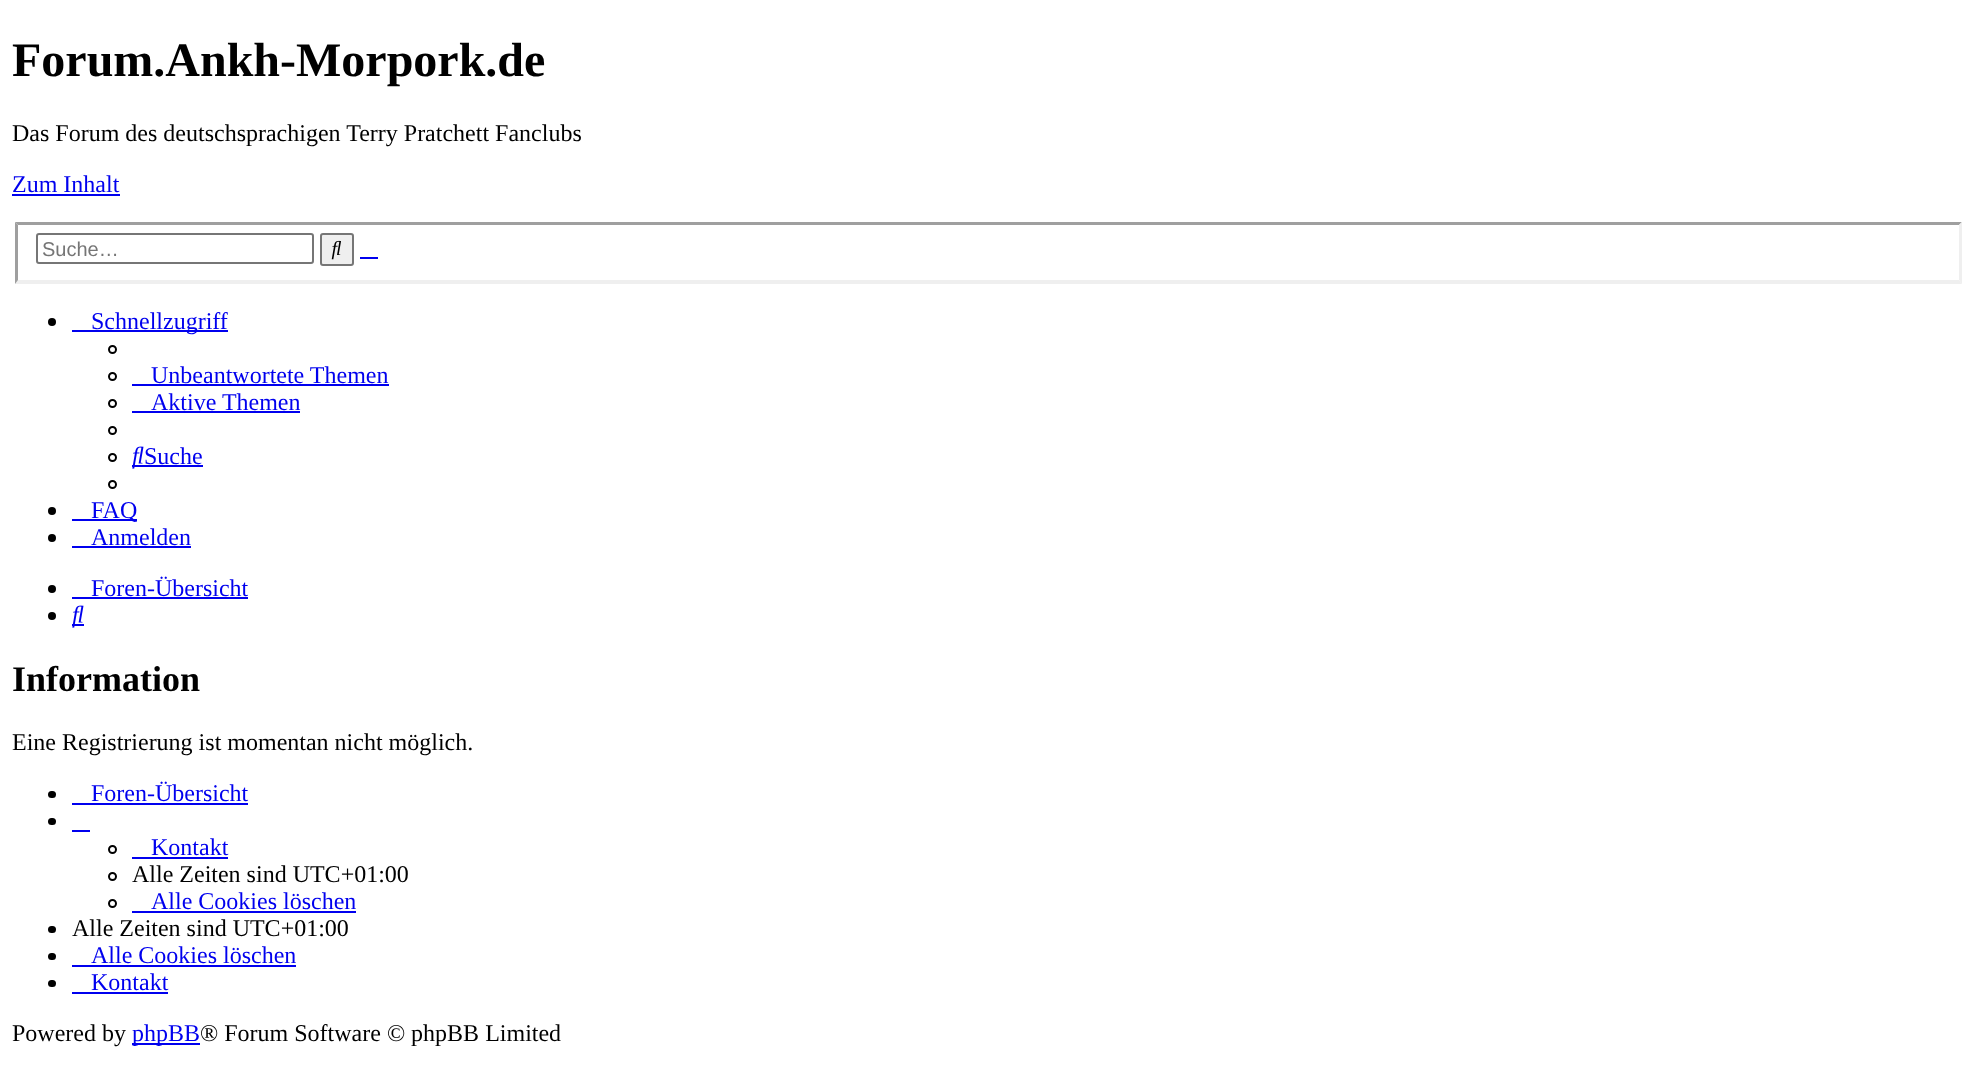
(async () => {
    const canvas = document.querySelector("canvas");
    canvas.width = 1977;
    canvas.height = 1083;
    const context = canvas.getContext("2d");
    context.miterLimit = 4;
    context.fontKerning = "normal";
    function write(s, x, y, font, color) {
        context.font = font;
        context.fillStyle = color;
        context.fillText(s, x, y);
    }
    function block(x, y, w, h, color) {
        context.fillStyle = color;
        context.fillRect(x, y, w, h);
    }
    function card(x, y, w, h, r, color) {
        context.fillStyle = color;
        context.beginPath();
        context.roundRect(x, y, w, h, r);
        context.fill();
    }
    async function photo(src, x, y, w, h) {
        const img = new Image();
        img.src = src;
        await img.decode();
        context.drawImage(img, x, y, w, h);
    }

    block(0, 0, 1977, 1083, "rgb(255, 255, 255)");
    write("Forum.Ankh-Morpork.de", 12, 76, "bold 48px Liberation Serif", "rgb(0, 0, 0)");
    write("Das Forum des deutschsprachigen Terry Pratchett Fanclubs", 12, 141, "24px Liberation Serif", "rgb(0, 0, 0)");
    write("Zum Inhalt", 12, 192, "24px Liberation Serif", "rgb(0, 0, 238)");
    block(12, 194, 108, 2, "rgb(0, 0, 238)");
    context.fillStyle = "rgb(159, 159, 159)";
    context.beginPath();
    context.moveTo(15, 222);
    context.lineTo(1962, 222);
    context.lineTo(1959, 225);
    context.lineTo(18, 225);
    context.closePath();
    context.fill();
    context.fillStyle = "rgb(239, 239, 239)";
    context.beginPath();
    context.moveTo(1962, 222);
    context.lineTo(1962, 284);
    context.lineTo(1959, 280);
    context.lineTo(1959, 225);
    context.closePath();
    context.fill();
    context.beginPath();
    context.moveTo(1962, 284);
    context.lineTo(15, 284);
    context.lineTo(18, 280);
    context.lineTo(1959, 280);
    context.closePath();
    context.fill();
    context.fillStyle = "rgb(159, 159, 159)";
    context.beginPath();
    context.moveTo(15, 284);
    context.lineTo(15, 222);
    context.lineTo(18, 225);
    context.lineTo(18, 280);
    context.closePath();
    context.fill();
    context.beginPath();
    context.roundRect(37, 234, 276, 29, 2);
    context.strokeStyle = "rgb(118, 118, 118)";
    context.lineWidth = 2;
    context.stroke();
    write("Suche…", 42, 256, "20px Liberation Sans", "rgb(117, 117, 117)");
    context.fillStyle = "rgb(239, 239, 239)";
    context.beginPath();
    context.roundRect(321, 234, 32, 31, 2);
    context.fill();
    context.stroke();
    await photo("media/1.png", 331, 240, 10, 20);
    block(360, 257, 18, 2, "rgb(0, 0, 238)");
    context.fillStyle = "rgb(0, 0, 0)";
    context.beginPath();
    context.arc(52, 322, 4, 0, Math.PI * 2);
    context.fill();
    block(72, 330, 156, 2, "rgb(0, 0, 238)");
    write("Schnellzugriff", 91, 329, "24px Liberation Serif", "rgb(0, 0, 238)");
    context.beginPath();
    context.arc(112.5, 349.5, 3.5, 0, Math.PI * 2);
    context.strokeStyle = "rgb(0, 0, 0)";
    context.stroke();
    context.beginPath();
    context.arc(112.5, 376.5, 3.5, 0, Math.PI * 2);
    context.stroke();
    write("Unbeantwortete Themen", 151, 383, "24px Liberation Serif", "rgb(0, 0, 238)");
    block(132, 384, 257, 2, "rgb(0, 0, 238)");
    context.beginPath();
    context.arc(112.5, 403.5, 3.5, 0, Math.PI * 2);
    context.stroke();
    write("Aktive Themen", 151, 410, "24px Liberation Serif", "rgb(0, 0, 238)");
    block(132, 411, 168, 2, "rgb(0, 0, 238)");
    context.beginPath();
    context.arc(112.5, 430.5, 3.5, 0, Math.PI * 2);
    context.stroke();
    context.beginPath();
    context.arc(112.5, 457.5, 3.5, 0, Math.PI * 2);
    context.stroke();
    block(132, 465, 71, 2, "rgb(0, 0, 238)");
    await photo("media/2.png", 132, 446, 12, 23);
    write("Suche", 144, 464, "24px Liberation Serif", "rgb(0, 0, 238)");
    context.beginPath();
    context.arc(112.5, 484.5, 3.5, 0, Math.PI * 2);
    context.stroke();
    context.fillStyle = "rgb(0, 0, 0)";
    context.beginPath();
    context.arc(52, 511, 4, 0, Math.PI * 2);
    context.fill();
    block(72, 519, 65, 2, "rgb(0, 0, 238)");
    write("FAQ", 91, 518, "24px Liberation Serif", "rgb(0, 0, 238)");
    context.fillStyle = "rgb(0, 0, 0)";
    context.beginPath();
    context.arc(52, 538, 4, 0, Math.PI * 2);
    context.fill();
    write("Anmelden", 91, 545, "24px Liberation Serif", "rgb(0, 0, 238)");
    block(72, 546, 119, 2, "rgb(0, 0, 238)");
    context.fillStyle = "rgb(0, 0, 0)";
    context.beginPath();
    context.arc(52, 589, 4, 0, Math.PI * 2);
    context.fill();
    write("Foren-Übersicht", 91, 596, "24px Liberation Serif", "rgb(0, 0, 238)");
    block(72, 597, 176, 2, "rgb(0, 0, 238)");
    context.fillStyle = "rgb(0, 0, 0)";
    context.beginPath();
    context.arc(52, 616, 4, 0, Math.PI * 2);
    context.fill();
    block(72, 624, 12, 2, "rgb(0, 0, 238)");
    await photo("media/2.png", 72, 605, 12, 23);
    write("Information", 12, 691, "bold 36px Liberation Serif", "rgb(0, 0, 0)");
    write("Eine Registrierung ist momentan nicht möglich.", 12, 750, "24px Liberation Serif", "rgb(0, 0, 0)");
    card(48, 791, 8, 7, 3.5, "rgb(0, 0, 0)");
    write("Foren-Übersicht", 91, 801, "24px Liberation Serif", "rgb(0, 0, 238)");
    block(72, 803, 176, 2, "rgb(0, 0, 238)");
    card(48, 818, 8, 7, 3.5, "rgb(0, 0, 0)");
    block(72, 830, 18, 2, "rgb(0, 0, 238)");
    context.beginPath();
    context.arc(112.5, 849.5, 3.5, 0, Math.PI * 2);
    context.stroke();
    write("Kontakt", 151, 855, "24px Liberation Serif", "rgb(0, 0, 238)");
    block(132, 857, 96, 2, "rgb(0, 0, 238)");
    context.beginPath();
    context.arc(112.5, 876.5, 3.5, 0, Math.PI * 2);
    context.stroke();
    write("Alle Zeiten sind UTC+01:00", 132, 882, "24px Liberation Serif", "rgb(0, 0, 0)");
    context.beginPath();
    context.arc(112.5, 903.5, 3.5, 0, Math.PI * 2);
    context.stroke();
    write("Alle Cookies löschen", 151, 909, "24px Liberation Serif", "rgb(0, 0, 238)");
    block(132, 911, 224, 2, "rgb(0, 0, 238)");
    card(48, 926, 8, 7, 3.5, "rgb(0, 0, 0)");
    write("Alle Zeiten sind UTC+01:00", 72, 936, "24px Liberation Serif", "rgb(0, 0, 0)");
    card(48, 953, 8, 7, 3.5, "rgb(0, 0, 0)");
    write("Alle Cookies löschen", 91, 963, "24px Liberation Serif", "rgb(0, 0, 238)");
    block(72, 965, 224, 2, "rgb(0, 0, 238)");
    card(48, 980, 8, 7, 3.5, "rgb(0, 0, 0)");
    write("Kontakt", 91, 990, "24px Liberation Serif", "rgb(0, 0, 238)");
    block(72, 992, 96, 2, "rgb(0, 0, 238)");
    write("Powered by", 12, 1041, "24px Liberation Serif", "rgb(0, 0, 0)");
    block(132, 1043, 68, 2, "rgb(0, 0, 238)");
    write("phpBB", 132, 1041, "24px Liberation Serif", "rgb(0, 0, 238)");
    write("® Forum Software © phpBB Limited", 200, 1041, "24px Liberation Serif", "rgb(0, 0, 0)");
})();
